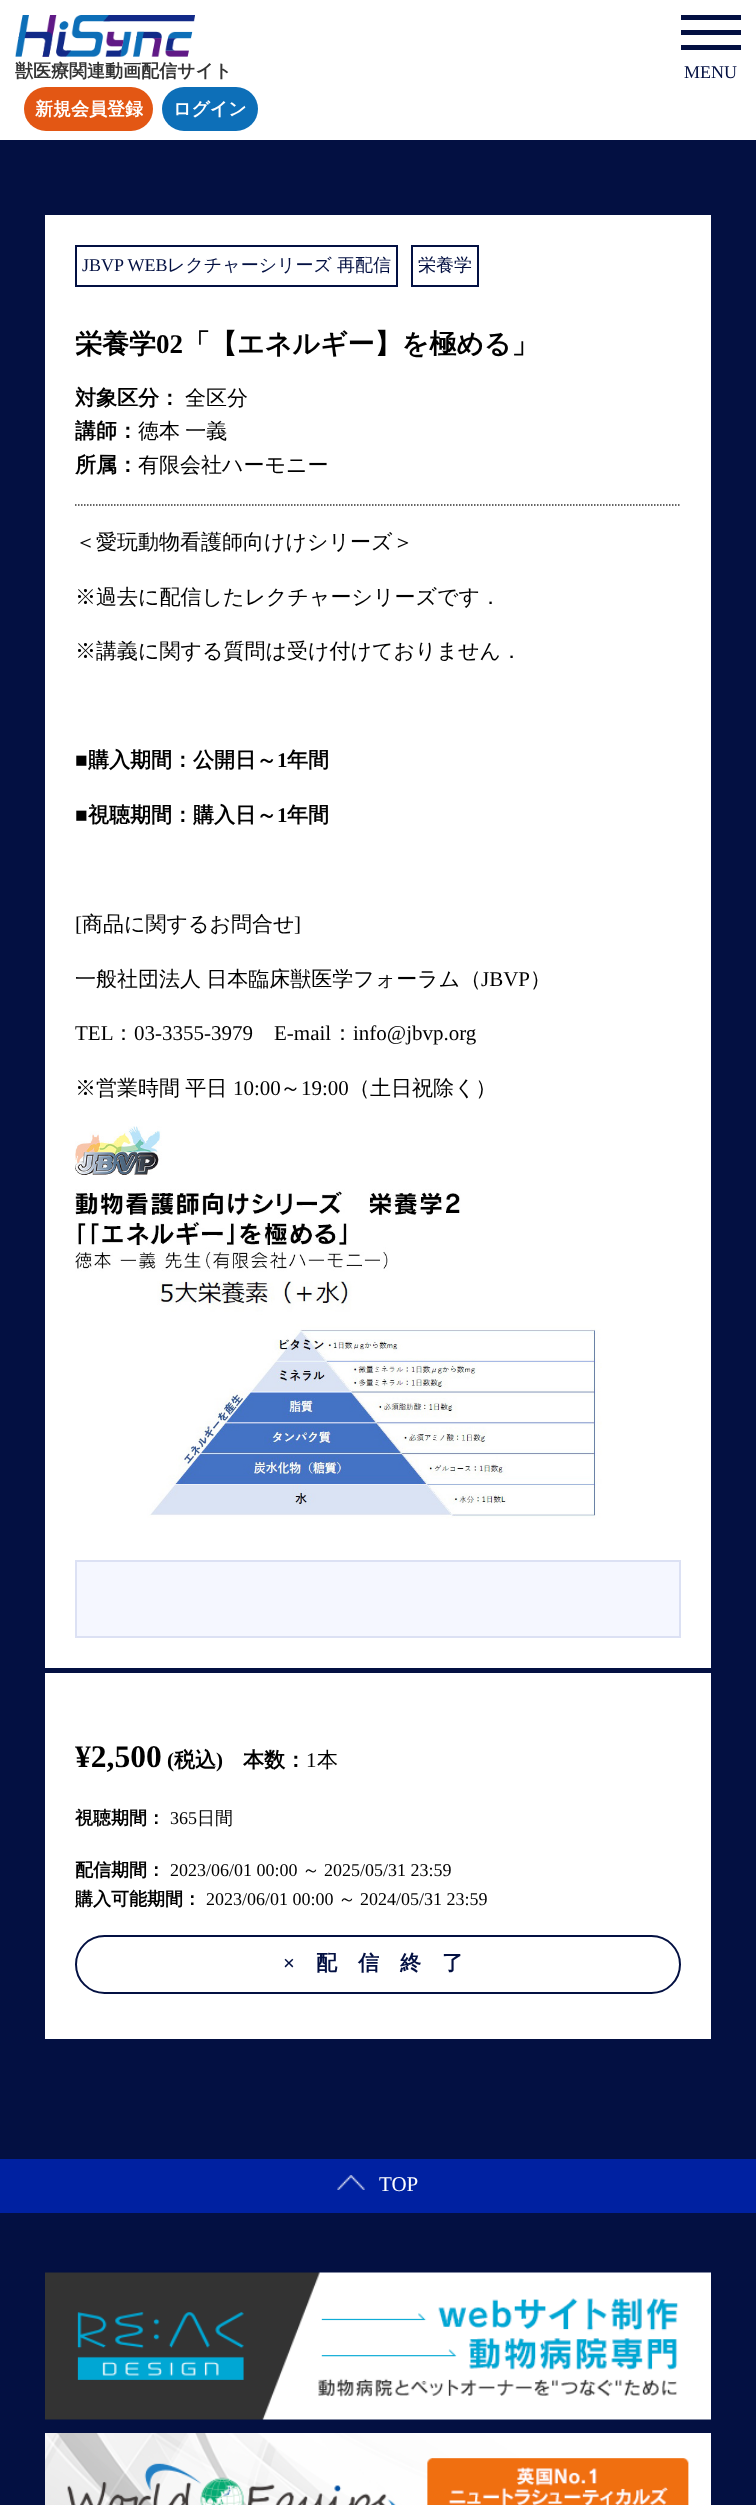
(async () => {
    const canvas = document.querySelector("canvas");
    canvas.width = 756;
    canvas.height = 2505;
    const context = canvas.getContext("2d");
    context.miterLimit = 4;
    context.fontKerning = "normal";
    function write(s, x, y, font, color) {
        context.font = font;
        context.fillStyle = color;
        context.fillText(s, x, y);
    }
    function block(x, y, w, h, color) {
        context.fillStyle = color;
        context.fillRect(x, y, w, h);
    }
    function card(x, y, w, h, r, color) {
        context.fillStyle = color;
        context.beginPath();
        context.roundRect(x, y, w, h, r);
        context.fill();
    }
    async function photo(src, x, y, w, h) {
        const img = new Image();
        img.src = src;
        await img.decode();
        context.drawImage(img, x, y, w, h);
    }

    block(0, 0, 756, 2505, "rgb(3, 16, 66)");
    block(0, 0, 756, 140, "rgb(255, 255, 255)");
    await photo("media/1.png", 15, 15, 180, 42);
    write("獣医療関連動画配信サイト", 15, 77, "bold 18px WenQuanYi Zen Hei", "rgb(51, 51, 51)");
    card(24, 87, 129, 44, 22, "rgb(227, 87, 20)");
    write("新規会員登録", 35, 115, "bold 18px WenQuanYi Zen Hei", "rgb(255, 255, 255)");
    card(162, 87, 96, 44, 22, "rgb(13, 111, 184)");
    write("ログイン", 173, 115, "bold 18px WenQuanYi Zen Hei", "rgb(255, 255, 255)");
    block(681, 15, 60, 5, "rgb(3, 16, 66)");
    block(681, 30, 60, 5, "rgb(3, 16, 66)");
    block(681, 45, 60, 5, "rgb(3, 16, 66)");
    write("MENU", 684, 78, "18px Liberation Serif", "rgb(3, 16, 66)");
    block(45, 215, 666, 1453, "rgb(255, 255, 255)");
    context.strokeStyle = "rgb(3, 16, 66)";
    context.lineWidth = 2;
    context.strokeRect(76, 246, 321, 40);
    write("JBVP WEB", 82, 271, "18px Liberation Serif", "rgb(3, 16, 66)");
    write("レクチャーシリーズ", 167, 271, "500 18px WenQuanYi Zen Hei", "rgb(3, 16, 66)");
    write("再配信", 337, 271, "500 18px WenQuanYi Zen Hei", "rgb(3, 16, 66)");
    context.strokeRect(412, 246, 66, 40);
    write("栄養学", 418, 271, "500 18px WenQuanYi Zen Hei", "rgb(3, 16, 66)");
    write("栄養学", 75, 353, "bold 27px WenQuanYi Zen Hei", "rgb(0, 0, 0)");
    write("02", 156, 353, "bold 27px Liberation Serif", "rgb(0, 0, 0)");
    write("「【エネルギー】を極める」", 183, 353, "bold 27px WenQuanYi Zen Hei", "rgb(0, 0, 0)");
    write("対象区分：", 75, 405, "bold 21px WenQuanYi Zen Hei", "rgb(0, 0, 0)");
    write("全区分", 185, 405, "500 21px WenQuanYi Zen Hei", "rgb(0, 0, 0)");
    write("講師：", 75, 438, "bold 21px WenQuanYi Zen Hei", "rgb(0, 0, 0)");
    context.wordSpacing = "-1px";
    write("徳本 一義", 138, 438, "500 21px WenQuanYi Zen Hei", "rgb(0, 0, 0)");
    context.wordSpacing = "0px";
    write("所属：", 75, 472, "bold 21px WenQuanYi Zen Hei", "rgb(0, 0, 0)");
    write("有限会社ハーモニー", 138, 472, "500 21px WenQuanYi Zen Hei", "rgb(0, 0, 0)");
    context.beginPath();
    context.moveTo(75, 505);
    context.lineTo(681, 505);
    context.strokeStyle = "rgb(51, 51, 51)";
    context.lineWidth = 1.5;
    context.setLineDash([1.5, 1.5]);
    context.stroke();
    write("＜愛玩動物看護師向けけシリーズ＞", 75, 549, "500 21px WenQuanYi Zen Hei", "rgb(0, 0, 0)");
    write("※過去に配信したレクチャーシリーズです．", 75, 604, "500 21px WenQuanYi Zen Hei", "rgb(0, 0, 0)");
    write("※講義に関する質問は受け付けておりません．", 75, 658, "500 21px WenQuanYi Zen Hei", "rgb(0, 0, 0)");
    write("■", 75, 767, "bold 21px Liberation Serif", "rgb(0, 0, 0)");
    write("購入期間：公開日～", 88, 767, "bold 21px WenQuanYi Zen Hei", "rgb(0, 0, 0)");
    write("1", 277, 767, "bold 21px Liberation Serif", "rgb(0, 0, 0)");
    write("年間", 287, 767, "bold 21px WenQuanYi Zen Hei", "rgb(0, 0, 0)");
    write("■", 75, 822, "bold 21px Liberation Serif", "rgb(0, 0, 0)");
    write("視聴期間：購入日～", 88, 822, "bold 21px WenQuanYi Zen Hei", "rgb(0, 0, 0)");
    write("1", 277, 822, "bold 21px Liberation Serif", "rgb(0, 0, 0)");
    write("年間", 287, 822, "bold 21px WenQuanYi Zen Hei", "rgb(0, 0, 0)");
    write("[", 75, 931, "21px Liberation Serif", "rgb(0, 0, 0)");
    write("商品に関するお問合せ", 82, 931, "500 21px WenQuanYi Zen Hei", "rgb(0, 0, 0)");
    write("]", 294, 931, "21px Liberation Serif", "rgb(0, 0, 0)");
    context.wordSpacing = "-1px";
    write("一般社団法人 日本臨床獣医学フォーラム（", 75, 986, "500 21px WenQuanYi Zen Hei", "rgb(0, 0, 0)");
    context.wordSpacing = "0px";
    write("JBVP", 481, 986, "21px Liberation Serif", "rgb(0, 0, 0)");
    write("）", 530, 986, "500 21px WenQuanYi Zen Hei", "rgb(0, 0, 0)");
    write("TEL", 75, 1040, "21px Liberation Serif", "rgb(0, 0, 0)");
    write("：", 113, 1040, "500 21px WenQuanYi Zen Hei", "rgb(0, 0, 0)");
    write("03-3355-3979", 134, 1040, "21px Liberation Serif", "rgb(0, 0, 0)");
    write("E-mail", 274, 1040, "21px Liberation Serif", "rgb(0, 0, 0)");
    write("：", 332, 1040, "500 21px WenQuanYi Zen Hei", "rgb(0, 0, 0)");
    write("info@jbvp.org", 353, 1040, "21px Liberation Serif", "rgb(0, 0, 0)");
    context.wordSpacing = "-1px";
    write("※営業時間 平日", 75, 1095, "500 21px WenQuanYi Zen Hei", "rgb(0, 0, 0)");
    context.wordSpacing = "0px";
    write("10:00", 233, 1095, "21px Liberation Serif", "rgb(0, 0, 0)");
    write("～", 280, 1095, "500 21px WenQuanYi Zen Hei", "rgb(0, 0, 0)");
    write("19:00", 301, 1095, "21px Liberation Serif", "rgb(0, 0, 0)");
    write("（土日祝除く）", 349, 1095, "500 21px WenQuanYi Zen Hei", "rgb(0, 0, 0)");
    await photo("media/2.png", 75, 1126, 527, 393);
    context.fillStyle = "rgb(245, 247, 255)";
    context.beginPath();
    context.rect(76, 1561, 604, 76);
    context.fill();
    context.strokeStyle = "rgb(220, 225, 244)";
    context.lineWidth = 2;
    context.setLineDash([]);
    context.stroke();
    block(45, 1673, 666, 366, "rgb(255, 255, 255)");
    write("¥2,500", 75, 1767, "bold 31.5px Liberation Serif", "rgb(0, 0, 0)");
    write("(", 167, 1767, "bold 21px Liberation Serif", "rgb(0, 0, 0)");
    write("税込", 174, 1767, "bold 21px WenQuanYi Zen Hei", "rgb(0, 0, 0)");
    write(")", 216, 1767, "bold 21px Liberation Serif", "rgb(0, 0, 0)");
    write("本数：", 243, 1767, "bold 21px WenQuanYi Zen Hei", "rgb(0, 0, 0)");
    write("1", 306, 1767, "21px Liberation Serif", "rgb(0, 0, 0)");
    write("本", 317, 1767, "500 21px WenQuanYi Zen Hei", "rgb(0, 0, 0)");
    write("視聴期間：", 75, 1824, "bold 18px WenQuanYi Zen Hei", "rgb(0, 0, 0)");
    write("365", 170, 1824, "18px Liberation Serif", "rgb(0, 0, 0)");
    write("日間", 197, 1824, "500 18px WenQuanYi Zen Hei", "rgb(0, 0, 0)");
    write("配信期間：", 75, 1876, "bold 18px WenQuanYi Zen Hei", "rgb(0, 0, 0)");
    write("2023/06/01 00:00", 170, 1876, "18px Liberation Serif", "rgb(0, 0, 0)");
    write("～", 302, 1876, "500 18px WenQuanYi Zen Hei", "rgb(0, 0, 0)");
    write("2025/05/31 23:59", 324, 1876, "18px Liberation Serif", "rgb(0, 0, 0)");
    write("購入可能期間：", 75, 1905, "bold 18px WenQuanYi Zen Hei", "rgb(0, 0, 0)");
    write("2023/06/01 00:00", 206, 1905, "18px Liberation Serif", "rgb(0, 0, 0)");
    write("～", 338, 1905, "500 18px WenQuanYi Zen Hei", "rgb(0, 0, 0)");
    write("2024/05/31 23:59", 360, 1905, "18px Liberation Serif", "rgb(0, 0, 0)");
    context.beginPath();
    context.roundRect(76, 1936, 604, 57, 28.5);
    context.strokeStyle = "rgb(3, 16, 66)";
    context.stroke();
    context.letterSpacing = "21px";
    write("×", 283, 1970, "bold 21px Liberation Serif", "rgb(3, 16, 66)");
    write("配信終了", 316, 1970, "bold 21px WenQuanYi Zen Hei", "rgb(3, 16, 66)");
    block(0, 2159, 756, 54, "rgb(0, 33, 161)");
    await photo("media/3.png", 337, 2175, 28, 15);
    context.letterSpacing = "0px";
    write("TOP", 379, 2191, "21px Liberation Serif", "rgb(255, 255, 255)");
    await photo("media/4.png", 45, 2272, 666, 148);
    await photo("media/5.png", 45, 2433, 666, 72);
})();
